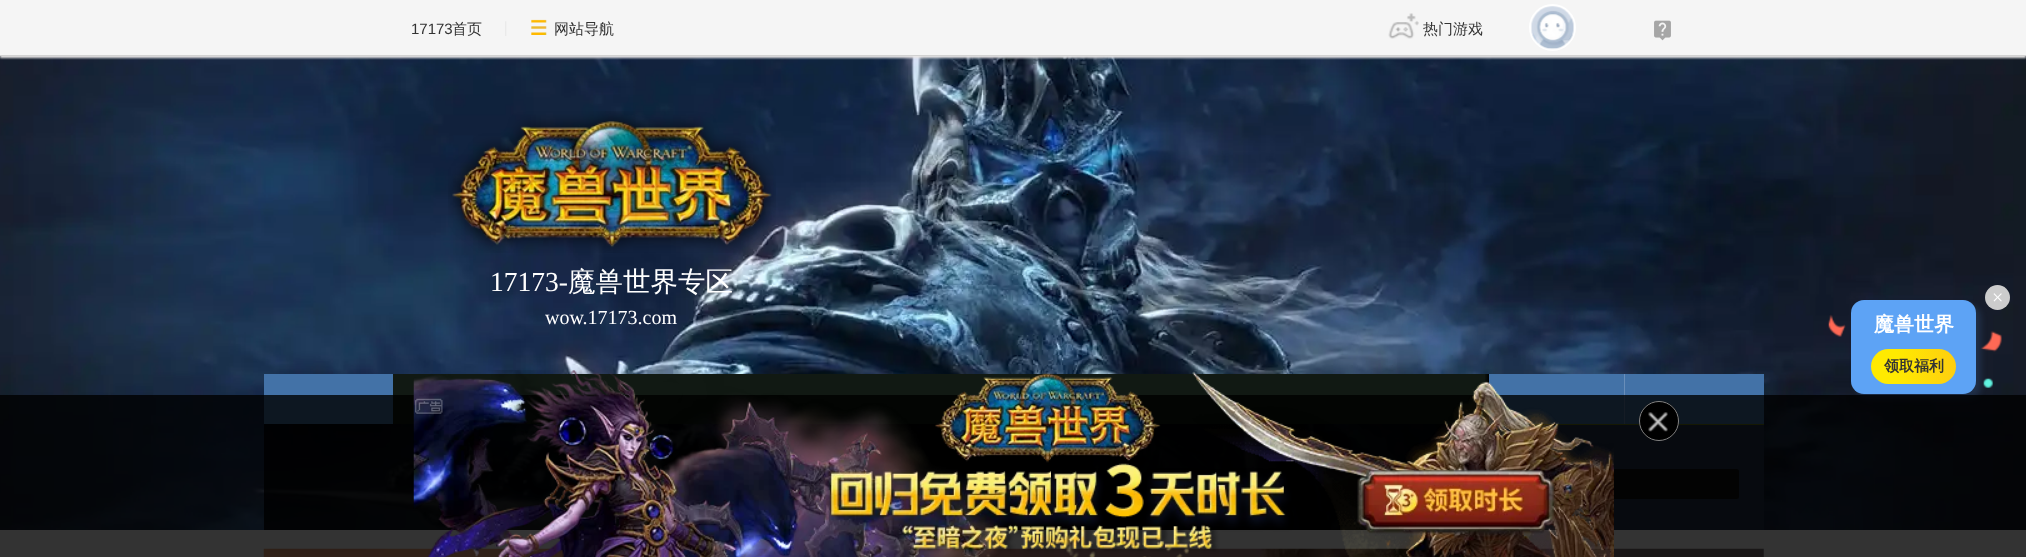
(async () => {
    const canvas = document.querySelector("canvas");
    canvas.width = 2026;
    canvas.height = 557;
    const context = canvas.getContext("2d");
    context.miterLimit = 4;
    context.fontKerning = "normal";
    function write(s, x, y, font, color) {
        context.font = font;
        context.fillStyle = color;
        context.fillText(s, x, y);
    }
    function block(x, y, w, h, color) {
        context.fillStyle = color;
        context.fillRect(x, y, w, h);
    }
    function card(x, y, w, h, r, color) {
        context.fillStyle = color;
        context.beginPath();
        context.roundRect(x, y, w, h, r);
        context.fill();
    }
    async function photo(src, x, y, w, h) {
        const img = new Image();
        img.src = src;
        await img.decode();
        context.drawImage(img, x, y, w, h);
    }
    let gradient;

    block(0, 0, 2026, 557, "rgb(255, 255, 255)");
    await photo("media/6.png", 0, 56, 2026, 474);
    context.fillStyle = "rgb(232, 230, 230)";
    context.filter = "blur(1px)";
    context.beginPath();
    context.rect(0, 1, 2026, 57);
    context.fill();
    context.filter = "none";
    block(0, 0, 2026, 55, "rgb(245, 245, 245)");
    block(0, 55, 2026, 1, "rgb(210, 210, 210)");
    write("17173", 411, 34, "15px Liberation Sans", "rgb(51, 51, 51)");
    write("首页", 452, 34, "500 15px WenQuanYi Zen Hei", "rgb(51, 51, 51)");
    await photo("media/1.png", 505, 21, 2, 15);
    await photo("media/2.png", 531, 19, 16, 16);
    write("网站导航", 554, 34, "500 15px WenQuanYi Zen Hei", "rgb(51, 51, 51)");
    await photo("media/3.png", 1388, 13, 31, 26);
    write("热门游戏", 1423, 34, "500 15px WenQuanYi Zen Hei", "rgb(51, 51, 51)");
    context.beginPath();
    context.arc(1552.5, 27.5, 22, 0, Math.PI * 2);
    context.strokeStyle = "rgb(255, 255, 255)";
    context.lineWidth = 3;
    context.stroke();
    await photo("media/4.png", 1531, 6, 43, 44);
    await photo("media/5.png", 1654, 20, 17, 21);
    await photo("media/7.png", 448, 111, 328, 142);
    write("17173-", 490, 291, "27.5px Liberation Serif", "rgb(255, 255, 255)");
    write("魔兽世界专区", 568, 291, "500 27.5px WenQuanYi Zen Hei", "rgb(255, 255, 255)");
    write("wow.17173.com", 545, 324, "20px Liberation Serif", "rgb(255, 255, 255)");
    block(393, 374, 1096, 50, "rgb(17, 25, 19)");
    block(264, 374, 129, 50, "rgb(67, 114, 167)");
    block(264, 424, 1225, 106, "rgba(0, 0, 0, 0.8)");
    block(1489, 425, 275, 105, "rgb(35, 53, 74)");
    gradient = context.createLinearGradient(1481, 374, 1489, 374);
    gradient.addColorStop(0, "rgba(0, 0, 0, 0)");
    gradient.addColorStop(0.45, "rgba(0, 0, 0, 0.1)");
    gradient.addColorStop(1, "rgb(0, 0, 0)");
    context.fillStyle = gradient;
    context.fillRect(1485, 374, 4, 58);
    block(1489, 374, 275, 50, "rgb(67, 114, 167)");
    block(1489, 424, 275, 1, "rgb(105, 122, 17)");
    block(1624, 374, 1, 50, "rgb(105, 142, 185)");
    card(1514, 469, 225, 30, 2.5, "rgb(17, 17, 17)");
    await photo("media/8.png", 263, 548, 1501, 9);
    context.fillStyle = "rgba(93, 163, 245, 0.15)";
    context.filter = "blur(3px)";
    context.beginPath();
    context.roundRect(1856, 305, 125, 94, 13);
    context.fill();
    context.filter = "none";
    card(1851, 300, 125, 94, 13, "rgb(93, 163, 245)");
    context.fillStyle = "rgb(204, 204, 204)";
    context.beginPath();
    context.arc(1997.5, 297.5, 12.5, 0, Math.PI * 2);
    context.fill();
    write("×", 1992, 304, "20px Liberation Serif", "rgb(255, 255, 255)");
    await photo("media/9.png", 1828, 314, 18, 23);
    write("魔兽世界", 1874, 331, "bold 20px WenQuanYi Zen Hei", "rgb(255, 255, 255)");
    gradient = context.createLinearGradient(1871, 366, 1956, 366);
    gradient.addColorStop(0.3, "rgb(255, 234, 0)");
    gradient.addColorStop(1, "rgb(254, 206, 16)");
    context.fillStyle = gradient;
    context.beginPath();
    context.roundRect(1871, 349, 85, 35, 17.5);
    context.fill();
    write("领取福利", 1884, 371, "bold 15px WenQuanYi Zen Hei", "rgb(51, 51, 51)");
    await photo("media/10.png", 1980, 331, 22, 57);
    block(0, 395, 2026, 162, "rgba(0, 0, 0, 0.8)");
    await photo("media/11.png", 413, 370, 1201, 187);
    await photo("media/12.png", 415, 398, 28, 17);
    context.fillStyle = "rgb(0, 0, 0)";
    context.beginPath();
    context.arc(1659, 421, 20, 0, Math.PI * 2);
    context.fill();
    await photo("media/13.png", 1648, 412, 20, 20);
    context.beginPath();
    context.arc(1659, 421, 19.5, 0, Math.PI * 2);
    context.strokeStyle = "rgb(132, 132, 132)";
    context.lineWidth = 1;
    context.stroke();
})();
